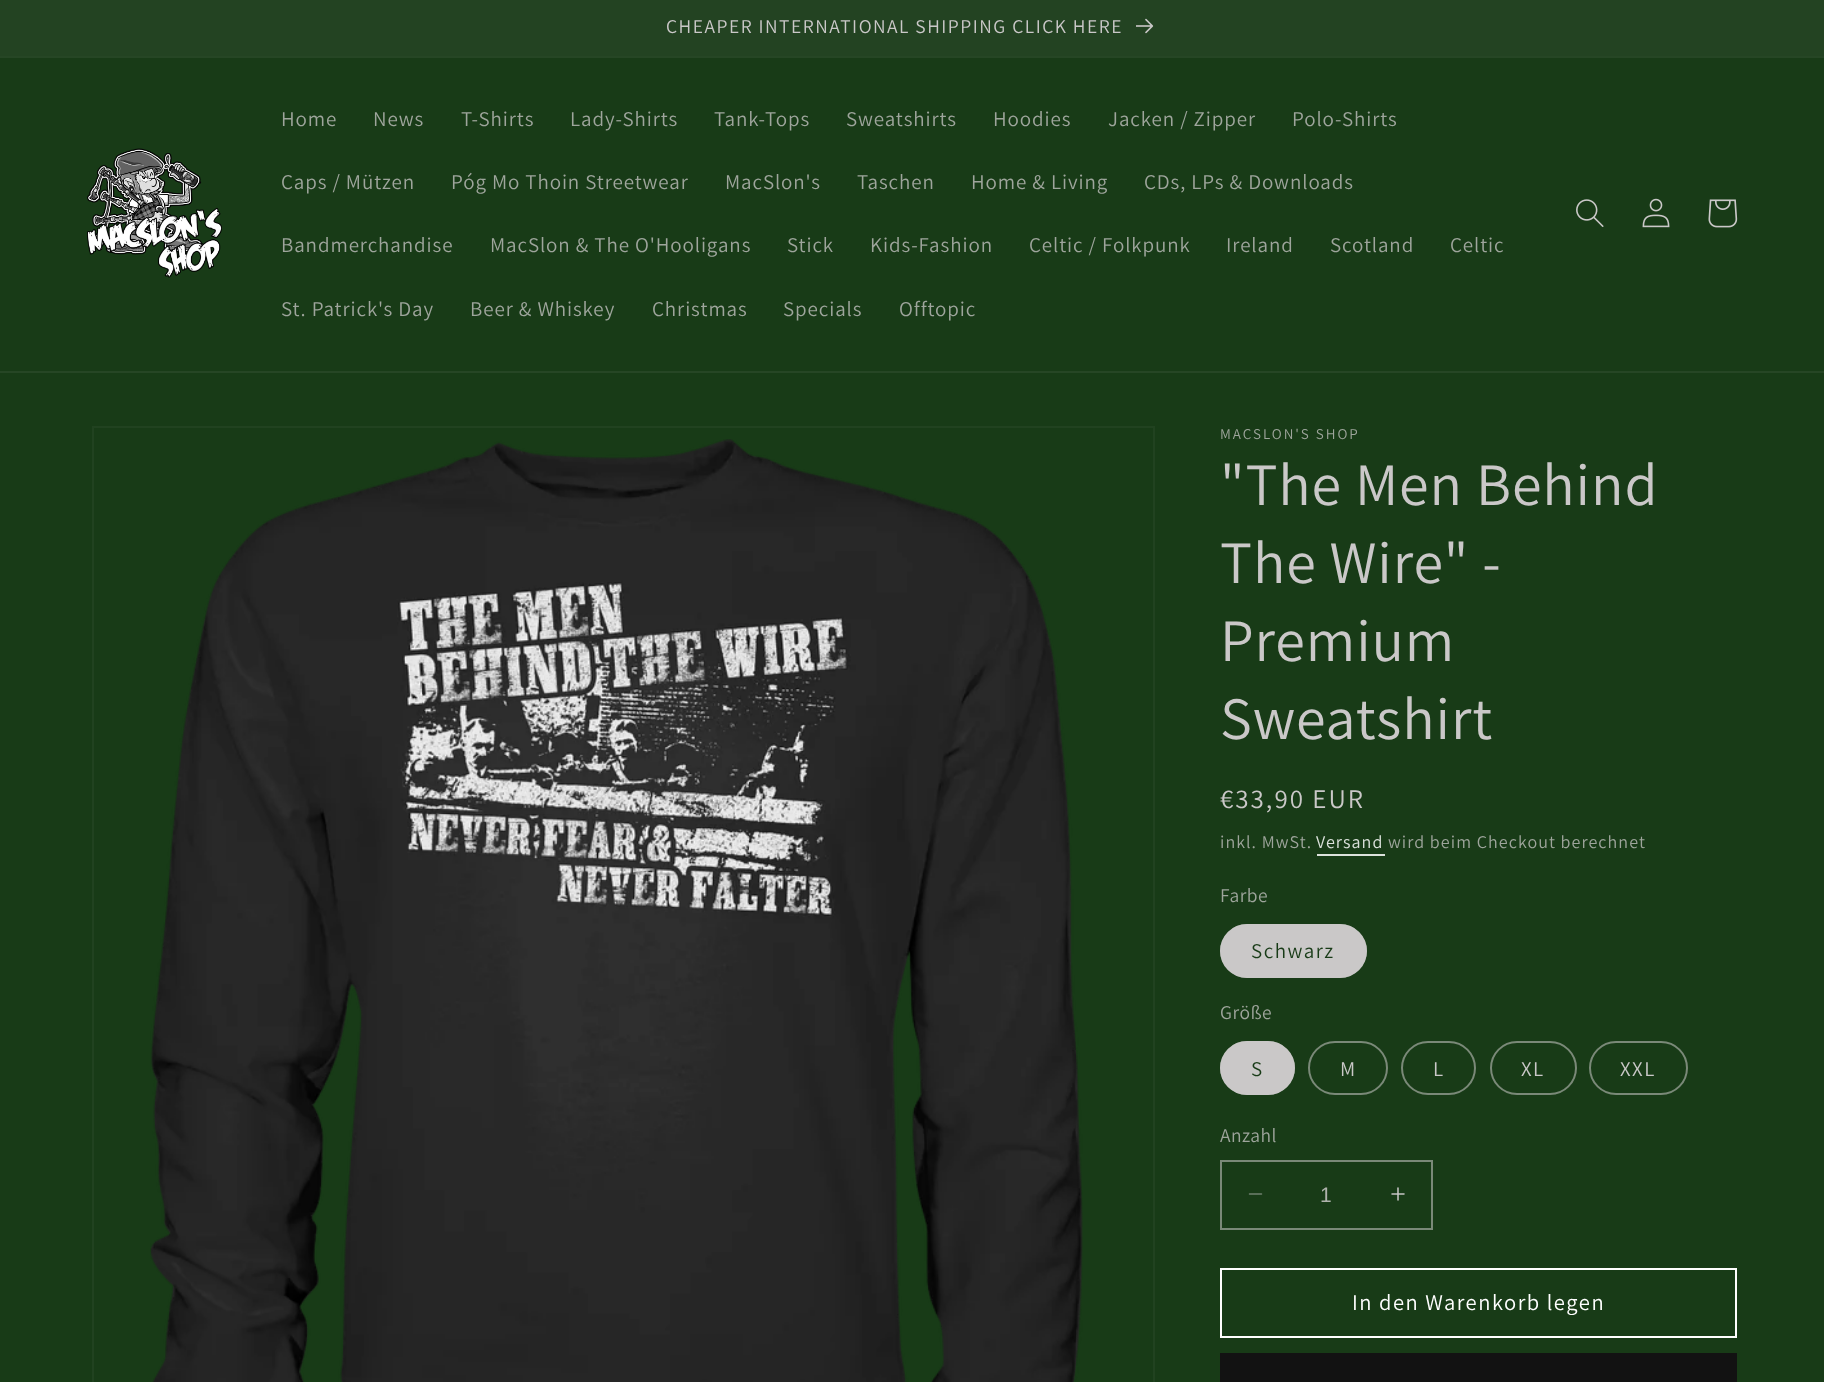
(async () => {
    const canvas = document.querySelector("canvas");
    canvas.width = 1824;
    canvas.height = 1382;
    const context = canvas.getContext("2d");
    context.miterLimit = 4;
    context.fontKerning = "normal";
    function write(s, x, y, font, color) {
        context.font = font;
        context.fillStyle = color;
        context.fillText(s, x, y);
    }
    function block(x, y, w, h, color) {
        context.fillStyle = color;
        context.fillRect(x, y, w, h);
    }
    function card(x, y, w, h, r, color) {
        context.fillStyle = color;
        context.beginPath();
        context.roundRect(x, y, w, h, r);
        context.fill();
    }
    async function photo(src, x, y, w, h) {
        const img = new Image();
        img.src = src;
        await img.decode();
        context.drawImage(img, x, y, w, h);
    }

    block(0, 0, 1824, 1382, "rgb(24, 59, 23)");
    block(0, 56, 1824, 2, "rgb(38, 70, 37)");
    block(0, 0, 1824, 56, "rgb(35, 67, 34)");
    context.letterSpacing = "1.5px";
    write("CHEAPER INTERNATIONAL SHIPPING CLICK HERE", 666, 33, "19.5px Assistant", "rgb(202, 200, 200)");
    await photo("media/1.png", 1136, 18, 18, 16);
    block(0, 371, 1824, 2, "rgb(38, 70, 37)");
    await photo("media/2.png", 87, 148, 135, 130);
    context.letterSpacing = "0.9px";
    write("Home", 281, 126, "21px Assistant", "rgb(158, 165, 156)");
    write("News", 373, 126, "21px Assistant", "rgb(158, 165, 156)");
    write("T-Shirts", 461, 126, "21px Assistant", "rgb(158, 165, 156)");
    write("Lady-Shirts", 570, 126, "21px Assistant", "rgb(158, 165, 156)");
    write("Tank-Tops", 714, 126, "21px Assistant", "rgb(158, 165, 156)");
    write("Sweatshirts", 846, 126, "21px Assistant", "rgb(158, 165, 156)");
    write("Hoodies", 993, 126, "21px Assistant", "rgb(158, 165, 156)");
    write("Jacken / Zipper", 1108, 126, "21px Assistant", "rgb(158, 165, 156)");
    write("Polo-Shirts", 1292, 126, "21px Assistant", "rgb(158, 165, 156)");
    write("Caps / Mützen", 281, 189, "21px Assistant", "rgb(158, 165, 156)");
    write("Póg Mo Thoin Streetwear", 451, 189, "21px Assistant", "rgb(158, 165, 156)");
    write("MacSlon's", 725, 189, "21px Assistant", "rgb(158, 165, 156)");
    write("Taschen", 857, 189, "21px Assistant", "rgb(158, 165, 156)");
    write("Home & Living", 971, 189, "21px Assistant", "rgb(158, 165, 156)");
    write("CDs, LPs & Downloads", 1144, 189, "21px Assistant", "rgb(158, 165, 156)");
    write("Bandmerchandise", 281, 252, "21px Assistant", "rgb(158, 165, 156)");
    write("MacSlon & The O'Hooligans", 490, 252, "21px Assistant", "rgb(158, 165, 156)");
    write("Stick", 787, 252, "21px Assistant", "rgb(158, 165, 156)");
    write("Kids-Fashion", 870, 252, "21px Assistant", "rgb(158, 165, 156)");
    write("Celtic / Folkpunk", 1029, 252, "21px Assistant", "rgb(158, 165, 156)");
    write("Ireland", 1226, 252, "21px Assistant", "rgb(158, 165, 156)");
    write("Scotland", 1330, 252, "21px Assistant", "rgb(158, 165, 156)");
    write("Celtic", 1450, 252, "21px Assistant", "rgb(158, 165, 156)");
    write("St. Patrick's Day", 281, 316, "21px Assistant", "rgb(158, 165, 156)");
    write("Beer & Whiskey", 470, 316, "21px Assistant", "rgb(158, 165, 156)");
    write("Christmas", 652, 316, "21px Assistant", "rgb(158, 165, 156)");
    write("Specials", 783, 316, "21px Assistant", "rgb(158, 165, 156)");
    write("Offtopic", 899, 316, "21px Assistant", "rgb(158, 165, 156)");
    await photo("media/3.png", 1576, 199, 28, 28);
    await photo("media/4.png", 1642, 198, 28, 30);
    await photo("media/5.png", 1708, 199, 30, 29);
    context.strokeStyle = "rgb(33, 66, 32)";
    context.lineWidth = 2;
    context.strokeRect(93, 427, 1061, 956);
    await photo("media/6.png", 150, 439, 933, 943);
    context.letterSpacing = "2px";
    write("MACSLON'S SHOP", 1220, 439, "15px Assistant", "rgb(158, 165, 156)");
    context.letterSpacing = "0.9px";
    write("\"The Men Behind", 1220, 505, "60px Assistant", "rgb(202, 200, 200)");
    write("The Wire\" -", 1220, 583, "60px Assistant", "rgb(202, 200, 200)");
    write("Premium", 1220, 661, "60px Assistant", "rgb(202, 200, 200)");
    write("Sweatshirt", 1220, 739, "60px Assistant", "rgb(202, 200, 200)");
    context.letterSpacing = "2px";
    write("€33,90 EUR", 1220, 808, "27px Assistant", "rgb(202, 200, 200)");
    context.letterSpacing = "1.05px";
    write("inkl. MwSt.", 1220, 848, "18px Assistant", "rgb(158, 165, 156)");
    write("Versand", 1316, 848, "18px Assistant", "rgb(220, 226, 220)");
    block(1317, 854, 68, 2, "rgb(220, 226, 220)");
    write("wird beim Checkout berechnet", 1388, 848, "18px Assistant", "rgb(158, 165, 156)");
    context.letterSpacing = "0.5px";
    write("Farbe", 1220, 902, "19.5px Assistant", "rgb(158, 165, 156)");
    card(1220, 924, 147, 54, 27, "rgb(202, 200, 200)");
    context.beginPath();
    context.roundRect(1221, 925, 145, 52, 26);
    context.strokeStyle = "rgba(202, 200, 200, 0.55)";
    context.stroke();
    context.letterSpacing = "1.5px";
    write("Schwarz", 1251, 958, "21px Assistant", "rgb(24, 59, 23)");
    context.letterSpacing = "0.5px";
    write("Größe", 1220, 1019, "19.5px Assistant", "rgb(158, 165, 156)");
    card(1220, 1041, 75, 54, 27, "rgb(202, 200, 200)");
    context.beginPath();
    context.roundRect(1221, 1042, 73, 52, 26);
    context.stroke();
    context.letterSpacing = "1.5px";
    write("S", 1251, 1076, "21px Assistant", "rgb(24, 59, 23)");
    context.beginPath();
    context.roundRect(1309, 1042, 78, 52, 26);
    context.strokeStyle = "rgb(122, 137, 120)";
    context.stroke();
    write("M", 1340, 1076, "21px Assistant", "rgb(202, 200, 200)");
    context.beginPath();
    context.roundRect(1402, 1042, 73, 52, 26);
    context.stroke();
    write("L", 1433, 1076, "21px Assistant", "rgb(202, 200, 200)");
    context.beginPath();
    context.roundRect(1491, 1042, 85, 52, 26);
    context.stroke();
    write("XL", 1521, 1076, "21px Assistant", "rgb(202, 200, 200)");
    context.beginPath();
    context.roundRect(1590, 1042, 97, 52, 26);
    context.stroke();
    write("XXL", 1620, 1076, "21px Assistant", "rgb(202, 200, 200)");
    context.letterSpacing = "0.5px";
    write("Anzahl", 1220, 1142, "19.5px Assistant", "rgb(158, 165, 156)");
    await photo("media/7.png", 1248, 1193, 15, 2);
    await photo("media/8.png", 1391, 1187, 14, 14);
    context.strokeRect(1221, 1161, 211, 68);
    context.letterSpacing = "0px";
    write("1", 1320, 1202, "21px Liberation Sans", "rgb(175, 179, 173)");
    context.strokeStyle = "rgb(255, 255, 255)";
    context.strokeRect(1221, 1269, 515, 68);
    context.letterSpacing = "1.5px";
    write("In den Warenkorb legen", 1352, 1310, "22.5px Assistant", "rgb(255, 255, 255)");
    block(1220, 1353, 517, 29, "rgb(18, 18, 18)");
})();
